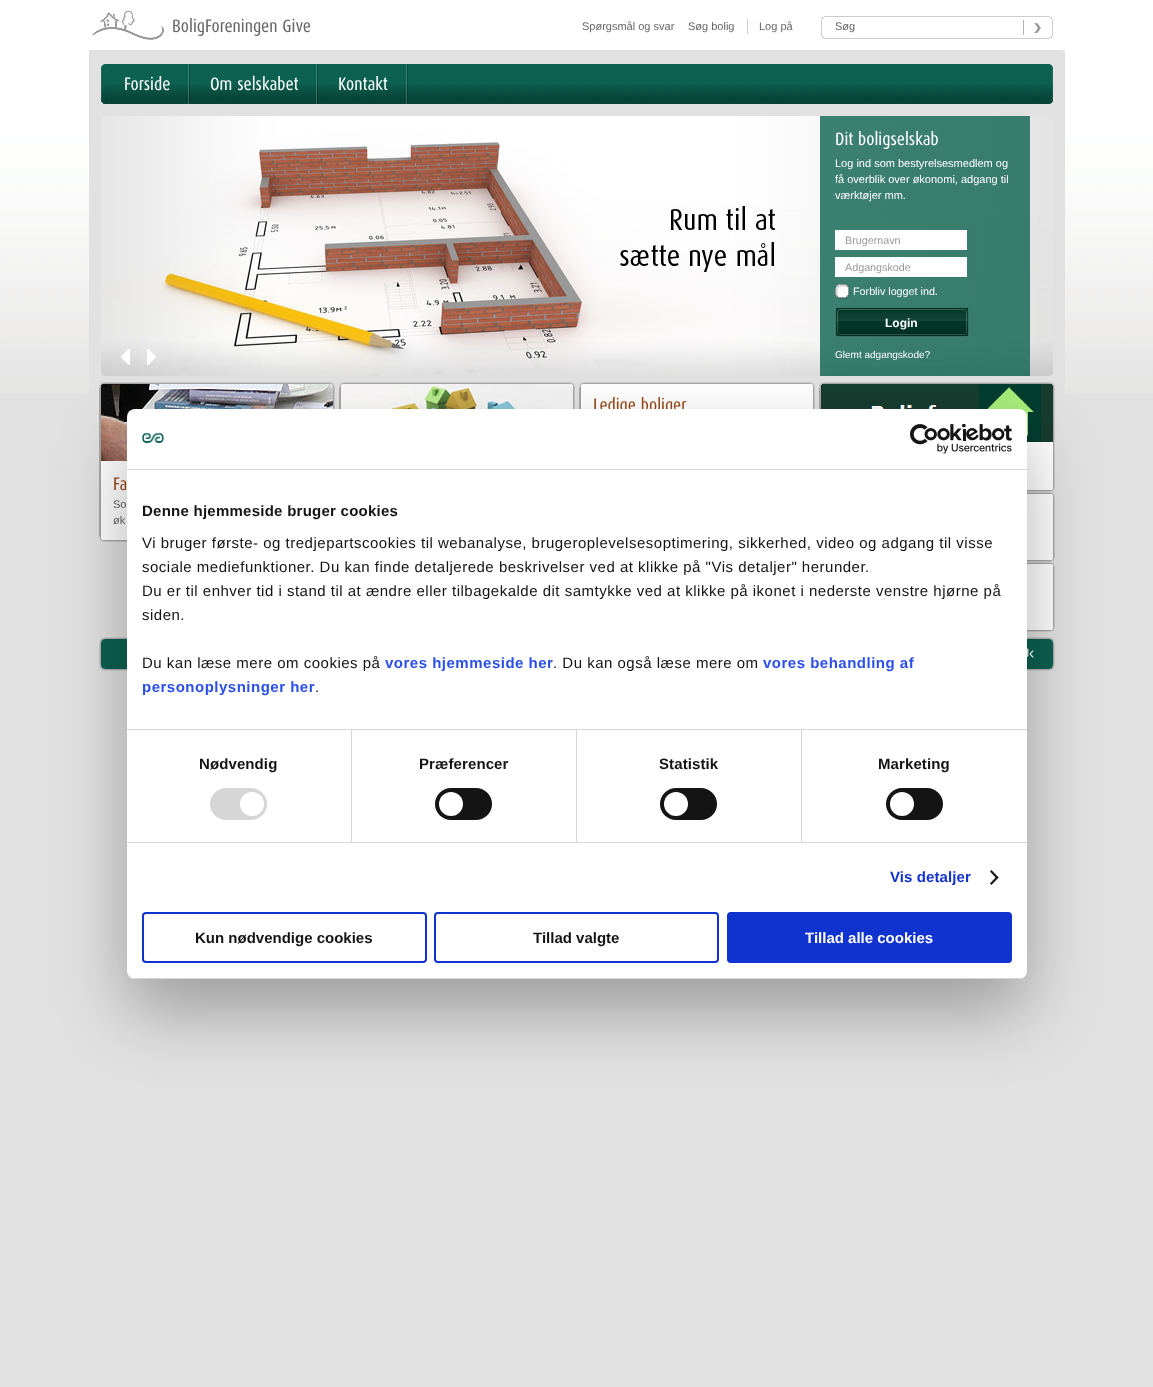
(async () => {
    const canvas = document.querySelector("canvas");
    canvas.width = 1153;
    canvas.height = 1387;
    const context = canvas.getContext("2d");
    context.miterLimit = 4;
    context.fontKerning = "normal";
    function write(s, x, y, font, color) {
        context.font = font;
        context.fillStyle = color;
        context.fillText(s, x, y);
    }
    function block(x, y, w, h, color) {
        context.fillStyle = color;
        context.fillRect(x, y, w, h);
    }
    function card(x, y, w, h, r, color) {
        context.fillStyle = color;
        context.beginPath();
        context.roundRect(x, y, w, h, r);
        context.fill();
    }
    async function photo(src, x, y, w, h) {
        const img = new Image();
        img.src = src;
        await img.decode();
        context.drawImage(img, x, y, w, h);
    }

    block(0, 0, 1153, 1387, "rgb(225, 225, 225)");
    await photo("media/1.png", 0, 0, 1153, 394);
    await photo("media/2.png", 92, 10, 72, 30);
    write("BoligForeningen Give", 172, 32, "18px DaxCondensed", "rgb(102, 102, 102)");
    write("Spørgsmål og svar", 582, 30, "11px Liberation Sans", "rgb(102, 102, 102)");
    write("Søg bolig", 688, 30, "11px Liberation Sans", "rgb(102, 102, 102)");
    block(747, 19, 1, 15, "rgb(204, 204, 204)");
    write("Log på", 759, 30, "11px Liberation Sans", "rgb(102, 102, 102)");
    await photo("media/3.png", 821, 16, 232, 23);
    write("Søg", 835, 30, "11px Liberation Sans", "rgb(102, 102, 102)");
    block(89, 50, 976, 344, "rgb(225, 225, 225)");
    block(1062, 50, 3, 3, "rgb(229, 229, 227)");
    block(101, 64, 952, 40, "rgb(12, 97, 80)");
    await photo("media/4.png", 101, 64, 4, 40);
    await photo("media/5.png", 105, 84, 944, 20);
    await photo("media/6.png", 188, 64, 2, 40);
    write("Forside", 124, 90, "18px DaxCondensed", "rgb(255, 255, 255)");
    await photo("media/7.png", 316, 64, 2, 40);
    write("Om selskabet", 210, 90, "18px DaxCondensed", "rgb(255, 255, 255)");
    await photo("media/8.png", 406, 64, 2, 40);
    write("Kontakt", 338, 90, "18px DaxCondensed", "rgb(255, 255, 255)");
    await photo("media/9.png", 1049, 64, 4, 40);
    await photo("media/10.png", 101, 116, 952, 260);
    block(101, 116, 1, 1, "rgb(225, 225, 225)");
    block(820, 116, 210, 260, "rgba(12, 97, 80, 0.8)");
    await photo("media/11.png", 121, 349, 9, 16);
    await photo("media/12.png", 147, 349, 9, 16);
    write("Dit boligselskab", 835, 145, "18px DaxCondensed", "rgb(255, 255, 255)");
    write("Log ind som bestyrelsesmedlem og", 835, 167, "11px Liberation Sans", "rgb(255, 255, 255)");
    write("få overblik over økonomi, adgang til", 835, 183, "11px Liberation Sans", "rgb(255, 255, 255)");
    write("værktøjer mm.", 835, 199, "11px Liberation Sans", "rgb(255, 255, 255)");
    block(835, 230, 132, 20, "rgb(255, 255, 255)");
    write("Brugernavn", 845, 244, "10.75px Liberation Sans", "rgb(153, 153, 153)");
    block(835, 257, 132, 20, "rgb(255, 255, 255)");
    write("Adgangskode", 845, 271, "10.75px Liberation Sans", "rgb(153, 153, 153)");
    await photo("media/13.png", 835, 284, 16, 16);
    write("Forbliv logget ind.", 853, 295, "10.75px Liberation Sans", "rgb(255, 255, 255)");
    block(836, 308, 132, 28, "rgb(2, 56, 42)");
    await photo("media/14.png", 835, 307, 134, 30);
    write("Login", 885, 327, "bold 12px Liberation Sans", "rgb(255, 255, 255)");
    write("Glemt adgangskode?", 835, 358, "10px Liberation Sans", "rgb(255, 255, 255)");
    block(101, 375, 1, 1, "rgb(225, 225, 225)");
    block(339, 382, 2, 27, "rgb(168, 165, 165)");
    await photo("media/15.png", 573, 387, 2, 22);
    await photo("media/16.png", 341, 384, 232, 25);
    await photo("media/17.png", 344, 382, 225, 2);
    await photo("media/18.png", 339, 382, 5, 6);
    await photo("media/19.png", 569, 382, 6, 5);
    await photo("media/17.png", 584, 382, 225, 2);
    block(579, 382, 2, 27, "rgb(168, 165, 165)");
    block(581, 384, 232, 25, "rgb(255, 255, 255)");
    await photo("media/20.png", 579, 382, 5, 6);
    await photo("media/21.png", 809, 382, 6, 5);
    await photo("media/15.png", 813, 387, 2, 22);
    write("Ledige boliger", 593, 411, "18px DaxCondensed", "rgb(152, 71, 19)");
    block(819, 382, 2, 27, "rgb(168, 165, 165)");
    await photo("media/22.png", 1053, 387, 2, 100);
    await photo("media/23.png", 821, 384, 232, 58);
    block(1027, 442, 26, 48, "rgb(255, 255, 255)");
    await photo("media/17.png", 824, 382, 225, 2);
    await photo("media/24.png", 819, 382, 5, 6);
    await photo("media/25.png", 1049, 382, 6, 5);
    await photo("media/26.png", 1027, 490, 23, 2);
    await photo("media/27.png", 1050, 487, 5, 5);
    await photo("media/28.png", 1027, 492, 22, 2);
    block(1027, 494, 26, 66, "rgb(255, 255, 255)");
    await photo("media/21.png", 1049, 492, 6, 5);
    await photo("media/29.png", 1053, 497, 2, 60);
    await photo("media/26.png", 1027, 560, 23, 2);
    await photo("media/27.png", 1050, 557, 5, 5);
    await photo("media/28.png", 1027, 562, 22, 2);
    block(1027, 564, 26, 66, "rgb(255, 255, 255)");
    await photo("media/21.png", 1049, 562, 6, 5);
    await photo("media/29.png", 1053, 567, 2, 60);
    await photo("media/26.png", 1027, 630, 23, 2);
    await photo("media/27.png", 1050, 627, 5, 5);
    await photo("media/17.png", 104, 382, 225, 2);
    block(99, 382, 2, 160, "rgb(168, 165, 165)");
    await photo("media/32.png", 101, 384, 232, 77);
    await photo("media/30.png", 99, 382, 5, 6);
    await photo("media/31.png", 329, 382, 6, 5);
    await photo("media/15.png", 333, 387, 2, 22);
    block(101, 461, 26, 79, "rgb(255, 255, 255)");
    write("Fa", 113, 490, "18px DaxCondensed", "rgb(152, 71, 19)");
    write("So", 113, 508, "11px Liberation Sans", "rgb(102, 102, 102)");
    write("øk", 113, 524, "11px Liberation Sans", "rgb(102, 102, 102)");
    await photo("media/33.png", 104, 540, 23, 2);
    await photo("media/34.png", 99, 536, 5, 6);
    block(101, 639, 952, 30, "rgb(12, 97, 80)");
    await photo("media/35.png", 99, 637, 6, 34);
    await photo("media/36.png", 105, 637, 944, 34);
    await photo("media/37.png", 1027, 648, 7, 10);
    await photo("media/38.png", 1049, 637, 6, 34);
    context.fillStyle = "rgba(0, 0, 0, 0.3)";
    context.filter = "blur(34px)";
    context.beginPath();
    context.roundRect(127, 441, 900, 570, 8);
    context.fill();
    context.filter = "none";
    card(127, 409, 900, 570, 8, "rgb(255, 255, 255)");
    block(127, 469, 900, 1, "rgb(214, 214, 214)");
    await photo("media/39.png", 142, 432, 22, 11);
    await photo("media/40.png", 910, 424, 102, 30);
    block(127, 729, 900, 1, "rgb(214, 214, 214)");
    context.letterSpacing = "0.25px";
    write("Denne hjemmeside bruger cookies", 142, 516, "bold 15px Liberation Sans", "rgb(20, 20, 20)");
    context.letterSpacing = "0.5px";
    write("Vi bruger første- og tredjepartscookies til webanalyse, brugeroplevelsesoptimering, sikkerhed, video og adgang til visse", 142, 548, "15px Liberation Sans", "rgb(20, 20, 20)");
    write("sociale mediefunktioner. Du kan finde detaljerede beskrivelser ved at klikke på \"Vis detaljer\" herunder.", 142, 572, "15px Liberation Sans", "rgb(20, 20, 20)");
    write("Du er til enhver tid i stand til at ændre eller tilbagekalde dit samtykke ved at klikke på ikonet i nederste venstre hjørne på", 142, 596, "15px Liberation Sans", "rgb(20, 20, 20)");
    write("siden.", 142, 620, "15px Liberation Sans", "rgb(20, 20, 20)");
    write("Du kan læse mere om cookies på", 142, 668, "15px Liberation Sans", "rgb(20, 20, 20)");
    write("vores hjemmeside her", 385, 668, "bold 15px Liberation Sans", "rgb(42, 78, 239)");
    write(". Du kan også læse mere om", 553, 668, "15px Liberation Sans", "rgb(20, 20, 20)");
    write("vores behandling af", 763, 668, "bold 15px Liberation Sans", "rgb(42, 78, 239)");
    write("personoplysninger her", 142, 692, "bold 15px Liberation Sans", "rgb(42, 78, 239)");
    write(".", 315, 692, "15px Liberation Sans", "rgb(20, 20, 20)");
    block(127, 842, 900, 1, "rgb(214, 214, 214)");
    block(351, 730, 1, 112, "rgb(214, 214, 214)");
    context.letterSpacing = "0.1px";
    write("Nødvendig", 199, 769, "bold 15px Liberation Sans", "rgb(20, 20, 20)");
    card(210, 788, 57, 32, 16, "rgb(214, 214, 214)");
    context.fillStyle = "rgb(255, 255, 255)";
    context.beginPath();
    context.arc(252, 804, 12, 0, Math.PI * 2);
    context.fill();
    block(576, 730, 1, 112, "rgb(214, 214, 214)");
    write("Præferencer", 419, 769, "bold 15px Liberation Sans", "rgb(20, 20, 20)");
    card(435, 788, 57, 32, 16, "rgb(20, 20, 20)");
    context.fillStyle = "rgb(255, 255, 255)";
    context.beginPath();
    context.arc(451, 804, 12, 0, Math.PI * 2);
    context.fill();
    block(801, 730, 1, 112, "rgb(214, 214, 214)");
    write("Statistik", 659, 769, "bold 15px Liberation Sans", "rgb(20, 20, 20)");
    card(660, 788, 57, 32, 16, "rgb(20, 20, 20)");
    context.fillStyle = "rgb(255, 255, 255)";
    context.beginPath();
    context.arc(676, 804, 12, 0, Math.PI * 2);
    context.fill();
    write("Marketing", 878, 769, "bold 15px Liberation Sans", "rgb(20, 20, 20)");
    card(886, 788, 57, 32, 16, "rgb(20, 20, 20)");
    context.fillStyle = "rgb(255, 255, 255)";
    context.beginPath();
    context.arc(902, 804, 12, 0, Math.PI * 2);
    context.fill();
    write("Vis detaljer", 890, 882, "bold 15px Liberation Sans", "rgb(16, 50, 207)");
    context.fillStyle = "rgb(20, 20, 20)";
    context.beginPath();
    context.moveTo(991.5, 870);
    context.lineTo(998.5, 877.5);
    context.lineTo(997, 879);
    context.lineTo(990, 871.5);
    context.closePath();
    context.fill();
    context.beginPath();
    context.moveTo(997, 876);
    context.lineTo(998.5, 877.5);
    context.lineTo(991.5, 885);
    context.lineTo(990, 883.5);
    context.closePath();
    context.fill();
    context.save();
    context.beginPath();
    context.roundRect(127, 409, 900, 570, 8);
    context.clip();
    block(127, 978, 900, 1, "rgb(214, 214, 214)");
    context.restore();
    context.beginPath();
    context.roundRect(143, 913, 283, 49, 3);
    context.strokeStyle = "rgb(16, 50, 207)";
    context.lineWidth = 2;
    context.stroke();
    context.letterSpacing = "0px";
    write("Kun nødvendige cookies", 195, 943, "bold 15px Liberation Sans", "rgb(20, 20, 20)");
    context.beginPath();
    context.roundRect(435, 913, 283, 49, 3);
    context.stroke();
    write("Tillad valgte", 533, 943, "bold 15px Liberation Sans", "rgb(20, 20, 20)");
    context.fillStyle = "rgb(16, 50, 207)";
    context.beginPath();
    context.roundRect(728, 913, 283, 49, 3);
    context.fill();
    context.stroke();
    write("Tillad alle cookies", 805, 943, "bold 15px Liberation Sans", "rgb(255, 255, 255)");
})();
